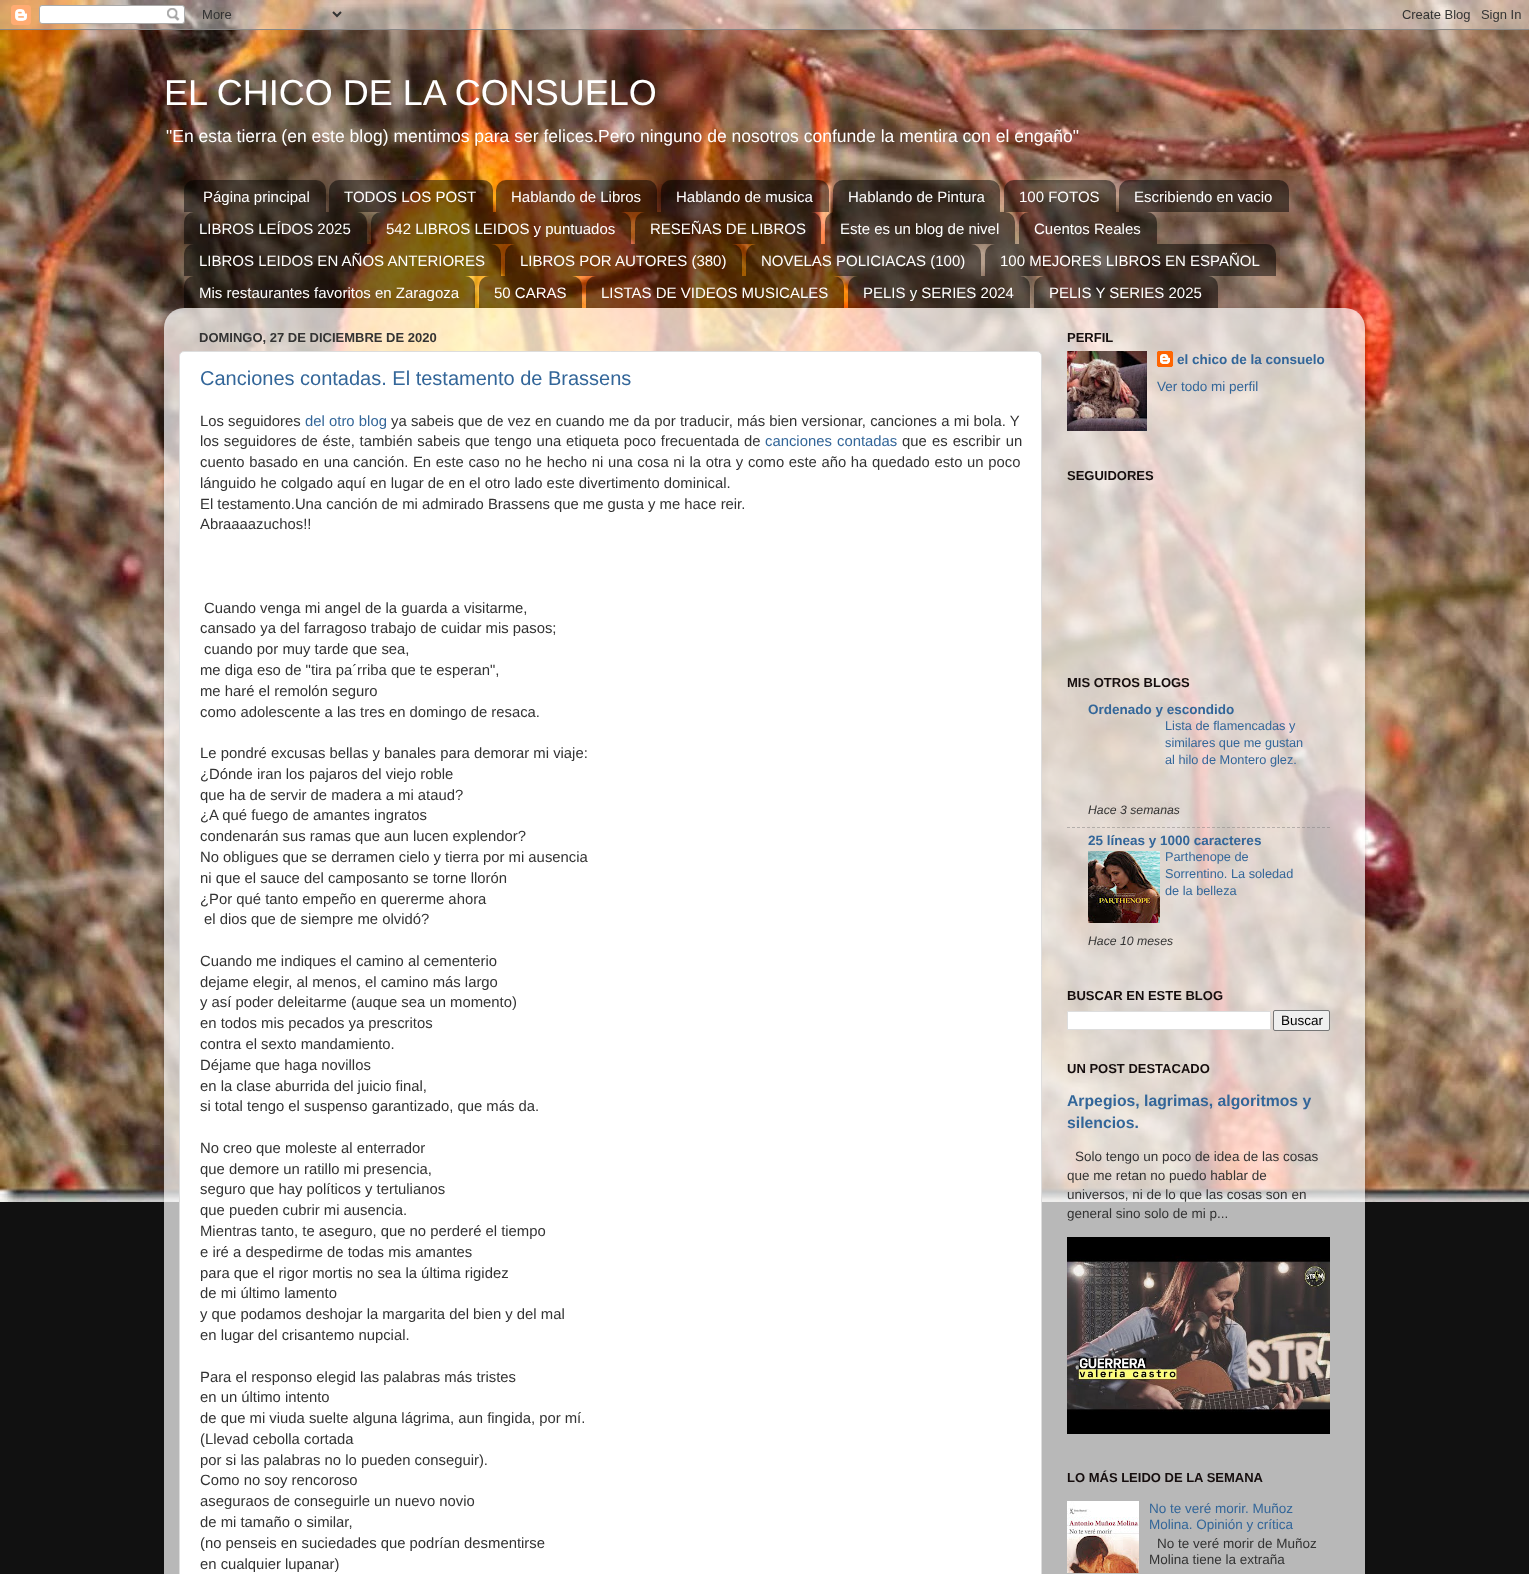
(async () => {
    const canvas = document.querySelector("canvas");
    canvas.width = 1529;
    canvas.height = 1574;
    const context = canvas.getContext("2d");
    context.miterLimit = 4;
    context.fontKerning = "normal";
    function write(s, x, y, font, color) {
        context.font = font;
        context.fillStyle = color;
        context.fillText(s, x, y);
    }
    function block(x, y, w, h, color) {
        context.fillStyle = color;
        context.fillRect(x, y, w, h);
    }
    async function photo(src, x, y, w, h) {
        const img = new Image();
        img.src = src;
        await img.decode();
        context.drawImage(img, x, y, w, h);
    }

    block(0, 0, 1529, 1574, "rgb(17, 17, 17)");
    await photo("media/1.png", 0, 0, 1529, 1202);
    await photo("media/2.png", 0, 0, 1529, 30);
    write("EL CHICO DE LA CONSUELO", 164, 105, "36px Liberation Sans", "rgb(255, 255, 255)");
    write("\"En esta tierra (en este blog) mentimos para ser felices.Pero ninguno de nosotros confunde la mentira con el engaño\"", 166, 142, "17.55px Liberation Sans", "rgb(255, 255, 255)");
    await photo("media/3.png", 184, 180, 142, 32);
    write("Página principal", 203, 202, "15px Liberation Sans", "rgb(255, 255, 255)");
    await photo("media/4.png", 329, 180, 164, 32);
    write("TODOS LOS POST", 344, 202, "15px Liberation Sans", "rgb(255, 255, 255)");
    await photo("media/5.png", 496, 180, 161, 32);
    write("Hablando de Libros", 511, 202, "15px Liberation Sans", "rgb(255, 255, 255)");
    await photo("media/6.png", 661, 180, 168, 32);
    write("Hablando de musica", 676, 202, "15px Liberation Sans", "rgb(255, 255, 255)");
    await photo("media/7.png", 833, 180, 167, 32);
    write("Hablando de Pintura", 848, 202, "15px Liberation Sans", "rgb(255, 255, 255)");
    await photo("media/8.png", 1004, 180, 112, 32);
    write("100 FOTOS", 1019, 202, "15px Liberation Sans", "rgb(255, 255, 255)");
    await photo("media/9.png", 1119, 180, 170, 32);
    write("Escribiendo en vacio", 1134, 202, "15px Liberation Sans", "rgb(255, 255, 255)");
    await photo("media/10.png", 184, 212, 183, 32);
    write("LIBROS LEÍDOS 2025", 199, 234, "15px Liberation Sans", "rgb(255, 255, 255)");
    await photo("media/11.png", 371, 212, 260, 32);
    write("542 LIBROS LEIDOS y puntuados", 386, 234, "15px Liberation Sans", "rgb(255, 255, 255)");
    await photo("media/12.png", 635, 212, 186, 32);
    write("RESEÑAS DE LIBROS", 650, 234, "15px Liberation Sans", "rgb(255, 255, 255)");
    await photo("media/13.png", 825, 212, 190, 32);
    write("Este es un blog de nivel", 840, 234, "15px Liberation Sans", "rgb(255, 255, 255)");
    await photo("media/14.png", 1019, 212, 138, 32);
    write("Cuentos Reales", 1034, 234, "15px Liberation Sans", "rgb(255, 255, 255)");
    await photo("media/15.png", 184, 244, 317, 32);
    write("LIBROS LEIDOS EN AÑOS ANTERIORES", 199, 266, "15px Liberation Sans", "rgb(255, 255, 255)");
    await photo("media/16.png", 505, 244, 237, 32);
    write("LIBROS POR AUTORES (380)", 520, 266, "15px Liberation Sans", "rgb(255, 255, 255)");
    await photo("media/17.png", 746, 244, 235, 32);
    write("NOVELAS POLICIACAS (100)", 761, 266, "15px Liberation Sans", "rgb(255, 255, 255)");
    await photo("media/18.png", 985, 244, 291, 32);
    write("100 MEJORES LIBROS EN ESPAÑOL", 1000, 266, "15px Liberation Sans", "rgb(255, 255, 255)");
    await photo("media/19.png", 184, 276, 291, 32);
    write("Mis restaurantes favoritos en Zaragoza", 199, 298, "15px Liberation Sans", "rgb(255, 255, 255)");
    await photo("media/20.png", 479, 276, 103, 32);
    write("50 CARAS", 494, 298, "15px Liberation Sans", "rgb(255, 255, 255)");
    await photo("media/21.png", 586, 276, 258, 32);
    write("LISTAS DE VIDEOS MUSICALES", 601, 298, "15px Liberation Sans", "rgb(255, 255, 255)");
    await photo("media/22.png", 848, 276, 182, 32);
    write("PELIS y SERIES 2024", 863, 298, "15px Liberation Sans", "rgb(255, 255, 255)");
    await photo("media/23.png", 1034, 276, 184, 32);
    write("PELIS Y SERIES 2025", 1049, 298, "15px Liberation Sans", "rgb(255, 255, 255)");
    context.save();
    context.beginPath();
    context.moveTo(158, 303);
    context.lineTo(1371, 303);
    context.lineTo(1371, 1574);
    context.lineTo(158, 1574);
    context.closePath();
    context.moveTo(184, 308);
    context.lineTo(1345, 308);
    context.bezierCurveTo(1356, 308, 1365, 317, 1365, 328);
    context.lineTo(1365, 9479);
    context.lineTo(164, 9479);
    context.lineTo(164, 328);
    context.bezierCurveTo(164, 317, 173, 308, 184, 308);
    context.closePath();
    context.clip("evenodd");
    context.fillStyle = "rgba(0, 0, 0, 0.15)";
    context.filter = "blur(1.5px)";
    context.beginPath();
    context.roundRect(164, 309, 1201, 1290, 20);
    context.fill();
    context.filter = "none";
    context.restore();
    await photo("media/24.png", 164, 308, 1201, 1266);
    write("DOMINGO, 27 DE DICIEMBRE DE 2020", 199, 342, "bold 13px Liberation Sans", "rgb(51, 51, 51)");
    context.fillStyle = "rgb(255, 255, 255)";
    context.beginPath();
    context.roundRect(179.5, 351.5, 862, 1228, 4.5);
    context.fill();
    context.strokeStyle = "rgb(221, 221, 221)";
    context.stroke();
    write("Canciones contadas. El testamento de Brassens", 200, 385, "20px Liberation Sans", "rgb(51, 102, 153)");
    write("Los seguidores", 200, 426, "14.85px Liberation Sans", "rgb(51, 51, 51)");
    context.wordSpacing = "0.1px";
    write("del otro blog", 305, 426, "14.85px Liberation Sans", "rgb(51, 102, 153)");
    write("ya sabeis que de vez en cuando me da por traducir, más bien versionar, canciones a mi bola. Y", 391, 426, "14.85px Liberation Sans", "rgb(51, 51, 51)");
    context.wordSpacing = "0.7px";
    write("los seguidores de éste, también sabeis que tengo una etiqueta poco frecuentada de", 200, 446, "14.85px Liberation Sans", "rgb(51, 51, 51)");
    context.wordSpacing = "1px";
    write("canciones contadas", 765, 446, "14.85px Liberation Sans", "rgb(51, 102, 153)");
    write("que es escribir un", 902, 446, "14.85px Liberation Sans", "rgb(51, 51, 51)");
    context.wordSpacing = "0.5px";
    write("cuento basado en una canción. En este caso no he hecho ni una cosa ni la otra y como este año ha quedado esto un poco", 200, 467, "14.85px Liberation Sans", "rgb(51, 51, 51)");
    context.wordSpacing = "0px";
    write("lánguido he colgado aquí en lugar de en el otro lado este divertimento dominical.", 200, 488, "14.85px Liberation Sans", "rgb(51, 51, 51)");
    write("El testamento.Una canción de mi admirado Brassens que me gusta y me hace reir.", 200, 509, "14.85px Liberation Sans", "rgb(51, 51, 51)");
    write("Abraaaazuchos!!", 200, 529, "14.85px Liberation Sans", "rgb(51, 51, 51)");
    write("Cuando venga mi angel de la guarda a visitarme,", 204, 613, "14.85px Liberation Sans", "rgb(51, 51, 51)");
    write("cansado ya del farragoso trabajo de cuidar mis pasos;", 200, 633, "14.85px Liberation Sans", "rgb(51, 51, 51)");
    write("cuando por muy tarde que sea,", 204, 654, "14.85px Liberation Sans", "rgb(51, 51, 51)");
    write("me diga eso de \"tira pa´rriba que te esperan\",", 200, 675, "14.85px Liberation Sans", "rgb(51, 51, 51)");
    write("me haré el remolón seguro", 200, 696, "14.85px Liberation Sans", "rgb(51, 51, 51)");
    write("como adolescente a las tres en domingo de resaca.", 200, 717, "14.85px Liberation Sans", "rgb(51, 51, 51)");
    write("Le pondré excusas bellas y banales para demorar mi viaje:", 200, 758, "14.85px Liberation Sans", "rgb(51, 51, 51)");
    write("¿Dónde iran los pajaros del viejo roble", 200, 779, "14.85px Liberation Sans", "rgb(51, 51, 51)");
    write("que ha de servir de madera a mi ataud?", 200, 800, "14.85px Liberation Sans", "rgb(51, 51, 51)");
    write("¿A qué fuego de amantes ingratos", 200, 820, "14.85px Liberation Sans", "rgb(51, 51, 51)");
    write("condenarán sus ramas que aun lucen explendor?", 200, 841, "14.85px Liberation Sans", "rgb(51, 51, 51)");
    write("No obligues que se derramen cielo y tierra por mi ausencia", 200, 862, "14.85px Liberation Sans", "rgb(51, 51, 51)");
    write("ni que el sauce del camposanto se torne llorón", 200, 883, "14.85px Liberation Sans", "rgb(51, 51, 51)");
    write("¿Por qué tanto empeño en quererme ahora", 200, 904, "14.85px Liberation Sans", "rgb(51, 51, 51)");
    write("el dios que de siempre me olvidó?", 204, 924, "14.85px Liberation Sans", "rgb(51, 51, 51)");
    write("Cuando me indiques el camino al cementerio", 200, 966, "14.85px Liberation Sans", "rgb(51, 51, 51)");
    write("dejame elegir, al menos, el camino más largo", 200, 987, "14.85px Liberation Sans", "rgb(51, 51, 51)");
    write("y así poder deleitarme (auque sea un momento)", 200, 1007, "14.85px Liberation Sans", "rgb(51, 51, 51)");
    write("en todos mis pecados ya prescritos", 200, 1028, "14.85px Liberation Sans", "rgb(51, 51, 51)");
    write("contra el sexto mandamiento.", 200, 1049, "14.85px Liberation Sans", "rgb(51, 51, 51)");
    write("Déjame que haga novillos", 200, 1070, "14.85px Liberation Sans", "rgb(51, 51, 51)");
    write("en la clase aburrida del juicio final,", 200, 1091, "14.85px Liberation Sans", "rgb(51, 51, 51)");
    write("si total tengo el suspenso garantizado, que más da.", 200, 1111, "14.85px Liberation Sans", "rgb(51, 51, 51)");
    write("No creo que moleste al enterrador", 200, 1153, "14.85px Liberation Sans", "rgb(51, 51, 51)");
    write("que demore un ratillo mi presencia,", 200, 1174, "14.85px Liberation Sans", "rgb(51, 51, 51)");
    write("seguro que hay políticos y tertulianos", 200, 1194, "14.85px Liberation Sans", "rgb(51, 51, 51)");
    write("que pueden cubrir mi ausencia.", 200, 1215, "14.85px Liberation Sans", "rgb(51, 51, 51)");
    write("Mientras tanto, te aseguro, que no perderé el tiempo", 200, 1236, "14.85px Liberation Sans", "rgb(51, 51, 51)");
    write("e iré a despedirme de todas mis amantes", 200, 1257, "14.85px Liberation Sans", "rgb(51, 51, 51)");
    write("para que el rigor mortis no sea la última rigidez", 200, 1278, "14.85px Liberation Sans", "rgb(51, 51, 51)");
    write("de mi último lamento", 200, 1298, "14.85px Liberation Sans", "rgb(51, 51, 51)");
    write("y que podamos deshojar la margarita del bien y del mal", 200, 1319, "14.85px Liberation Sans", "rgb(51, 51, 51)");
    write("en lugar del crisantemo nupcial.", 200, 1340, "14.85px Liberation Sans", "rgb(51, 51, 51)");
    write("Para el responso elegid las palabras más tristes", 200, 1382, "14.85px Liberation Sans", "rgb(51, 51, 51)");
    write("en un último intento", 200, 1402, "14.85px Liberation Sans", "rgb(51, 51, 51)");
    write("de que mi viuda suelte alguna lágrima, aun fingida, por mí.", 200, 1423, "14.85px Liberation Sans", "rgb(51, 51, 51)");
    write("(Llevad cebolla cortada", 200, 1444, "14.85px Liberation Sans", "rgb(51, 51, 51)");
    write("por si las palabras no lo pueden conseguir).", 200, 1465, "14.85px Liberation Sans", "rgb(51, 51, 51)");
    write("Como no soy rencoroso", 200, 1485, "14.85px Liberation Sans", "rgb(51, 51, 51)");
    write("aseguraos de conseguirle un nuevo novio", 200, 1506, "14.85px Liberation Sans", "rgb(51, 51, 51)");
    write("de mi tamaño o similar,", 200, 1527, "14.85px Liberation Sans", "rgb(51, 51, 51)");
    write("(no penseis en suciedades que podrían desmentirse", 200, 1548, "14.85px Liberation Sans", "rgb(51, 51, 51)");
    write("en cualquier lupanar)", 200, 1569, "14.85px Liberation Sans", "rgb(51, 51, 51)");
    write("PERFIL", 1067, 342, "bold 13px Liberation Sans", "rgb(21, 13, 13)");
    await photo("media/25.png", 1067, 351, 80, 80);
    await photo("media/26.png", 1157, 351, 16, 16);
    write("el chico de la consuelo", 1177, 364, "bold 13.5px Liberation Sans", "rgb(51, 102, 153)");
    write("Ver todo mi perfil", 1157, 391, "13.5px Liberation Sans", "rgb(51, 102, 153)");
    write("SEGUIDORES", 1067, 480, "bold 13px Liberation Sans", "rgb(21, 13, 13)");
    write("MIS OTROS BLOGS", 1067, 687, "bold 13px Liberation Sans", "rgb(21, 13, 13)");
    write("Ordenado y escondido", 1088, 714, "bold 13.5px Liberation Sans", "rgb(51, 102, 153)");
    write("Lista de flamencadas y", 1165, 730, "12.75px Liberation Sans", "rgb(51, 102, 153)");
    write("similares que me gustan", 1165, 747, "12.75px Liberation Sans", "rgb(51, 102, 153)");
    write("al hilo de Montero glez.", 1165, 764, "12.75px Liberation Sans", "rgb(51, 102, 153)");
    write("Hace 3 semanas", 1088, 814, "italic 12.25px Liberation Sans", "rgb(51, 51, 51)");
    context.beginPath();
    context.moveTo(1067, 827.5);
    context.lineTo(1330, 827.5);
    context.strokeStyle = "rgba(128, 128, 128, 0.5)";
    context.setLineDash([3, 2]);
    context.stroke();
    write("25 líneas y 1000 caracteres", 1088, 845, "bold 13.5px Liberation Sans", "rgb(51, 102, 153)");
    await photo("media/27.png", 1088, 851, 72, 72);
    write("Parthenope de", 1165, 861, "12.75px Liberation Sans", "rgb(51, 102, 153)");
    write("Sorrentino. La soledad", 1165, 878, "12.75px Liberation Sans", "rgb(51, 102, 153)");
    write("de la belleza", 1165, 895, "12.75px Liberation Sans", "rgb(51, 102, 153)");
    write("Hace 10 meses", 1088, 945, "italic 12.25px Liberation Sans", "rgb(51, 51, 51)");
    write("BUSCAR EN ESTE BLOG", 1067, 1000, "bold 13px Liberation Sans", "rgb(21, 13, 13)");
    context.fillStyle = "rgb(255, 255, 255)";
    context.beginPath();
    context.rect(1067.5, 1011.5, 203, 18);
    context.fill();
    context.strokeStyle = "rgb(221, 221, 221)";
    context.setLineDash([]);
    context.stroke();
    context.fillStyle = "rgb(239, 239, 239)";
    context.beginPath();
    context.roundRect(1273.5, 1010.5, 56, 20, 1.5);
    context.fill();
    context.strokeStyle = "rgb(118, 118, 118)";
    context.stroke();
    write("Buscar", 1281, 1025, "13.5px Liberation Sans", "rgb(0, 0, 0)");
    write("UN POST DESTACADO", 1067, 1073, "bold 13px Liberation Sans", "rgb(21, 13, 13)");
    write("Arpegios, lagrimas, algoritmos y", 1067, 1106, "bold 15.75px Liberation Sans", "rgb(51, 102, 153)");
    write("silencios.", 1067, 1128, "bold 15.75px Liberation Sans", "rgb(51, 102, 153)");
    write("Solo tengo un poco de idea de las cosas", 1075, 1161, "13.5px Liberation Sans", "rgb(51, 51, 51)");
    write("que me retan no puedo hablar de", 1067, 1180, "13.5px Liberation Sans", "rgb(51, 51, 51)");
    write("universos, ni de lo que las cosas son en", 1067, 1199, "13.5px Liberation Sans", "rgb(51, 51, 51)");
    write("general sino solo de mi p...", 1067, 1218, "13.5px Liberation Sans", "rgb(51, 51, 51)");
    await photo("media/28.png", 1067, 1237, 263, 197);
    write("LO MÁS LEIDO DE LA SEMANA", 1067, 1482, "bold 13px Liberation Sans", "rgb(21, 13, 13)");
    await photo("media/29.png", 1067, 1501, 72, 72);
    write("No te veré morir. Muñoz", 1149, 1513, "13.5px Liberation Sans", "rgb(51, 102, 153)");
    write("Molina. Opinión y crítica", 1149, 1529, "13.5px Liberation Sans", "rgb(51, 102, 153)");
    write("No te veré morir de Muñoz", 1157, 1548, "13.5px Liberation Sans", "rgb(51, 51, 51)");
    write("Molina tiene la extraña", 1149, 1564, "13.5px Liberation Sans", "rgb(51, 51, 51)");
})();
